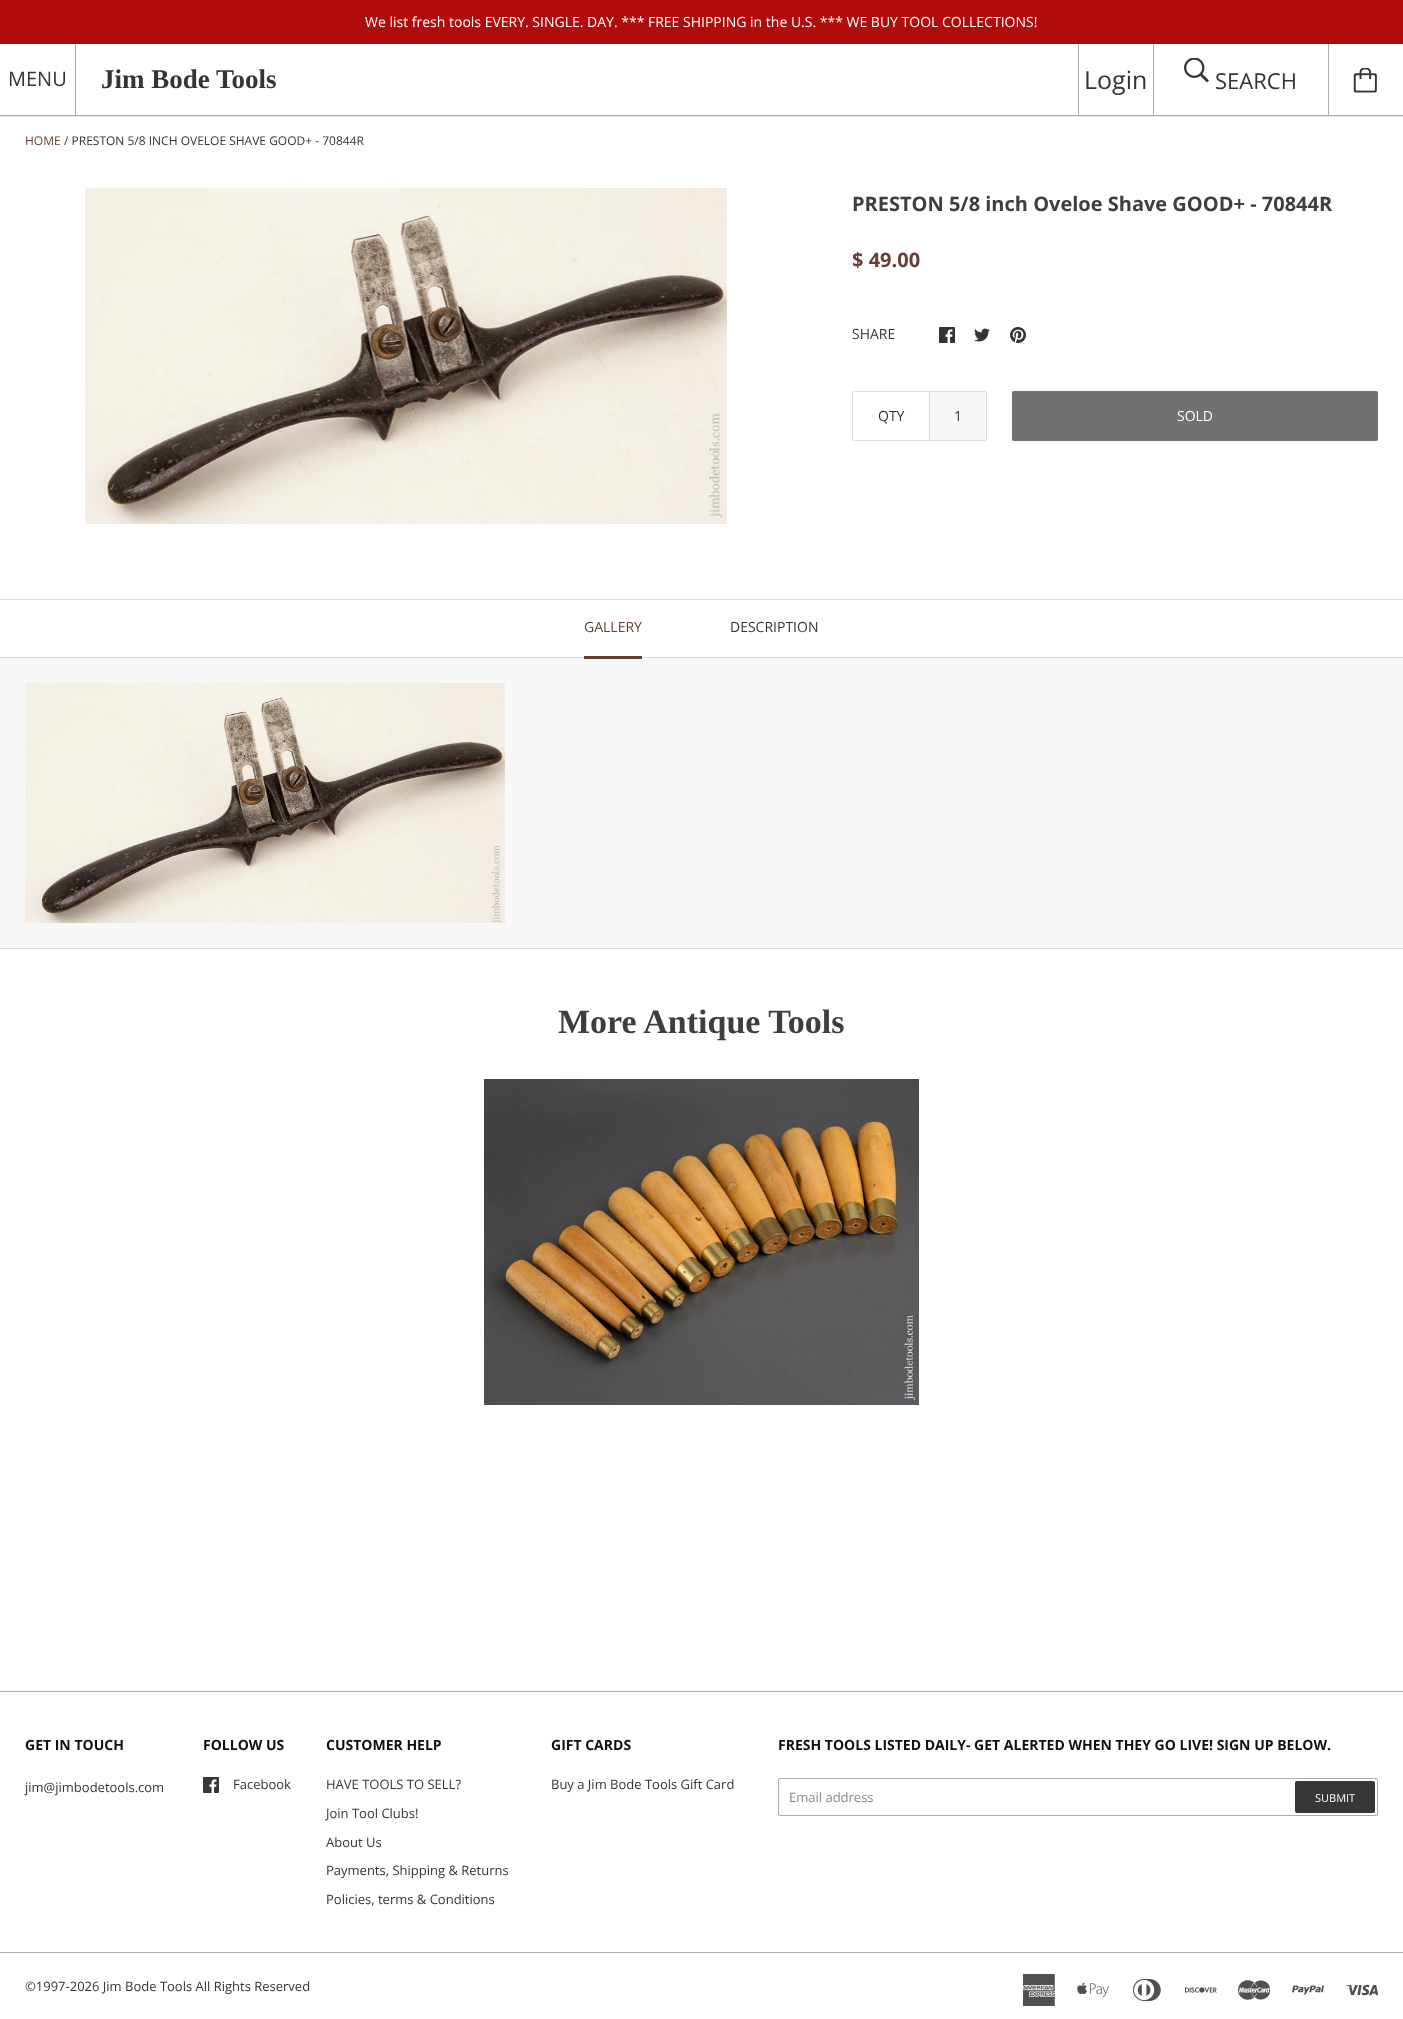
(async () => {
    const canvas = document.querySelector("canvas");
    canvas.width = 1403;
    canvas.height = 2019;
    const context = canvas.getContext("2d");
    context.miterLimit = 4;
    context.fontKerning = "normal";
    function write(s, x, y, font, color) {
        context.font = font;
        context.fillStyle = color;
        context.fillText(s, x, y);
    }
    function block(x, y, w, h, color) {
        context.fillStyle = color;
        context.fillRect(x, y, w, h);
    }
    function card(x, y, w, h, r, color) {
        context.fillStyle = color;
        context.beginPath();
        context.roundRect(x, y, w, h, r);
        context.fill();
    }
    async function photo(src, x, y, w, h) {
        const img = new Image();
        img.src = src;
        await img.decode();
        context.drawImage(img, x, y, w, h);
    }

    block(0, 0, 1403, 2019, "rgb(255, 255, 255)");
    block(0, 0, 1403, 44, "rgb(176, 12, 12)");
    write("We list fresh tools EVERY. SINGLE. DAY. *** FREE SHIPPING in the U.S. *** WE BUY TOOL COLLECTIONS!", 365, 27, "14px Open Sans", "rgb(255, 255, 255)");
    block(0, 116, 1403, 1, "rgb(230, 230, 228)");
    block(0, 115, 1403, 1, "rgb(170, 173, 166)");
    write("MENU", 8, 86, "20px Open Sans", "rgb(52, 52, 52)");
    block(75, 44, 1, 71, "rgb(170, 173, 166)");
    write("Jim Bode Tools", 101, 88, "bold 27px Liberation Serif", "rgb(52, 52, 52)");
    block(1078, 44, 1, 71, "rgb(170, 173, 166)");
    write("Login", 1084, 89, "25px Open Sans", "rgb(52, 52, 52)");
    block(1153, 44, 1, 71, "rgb(170, 173, 166)");
    await photo("media/1.png", 1184, 58, 25, 25);
    write("SEARCH", 1215, 89, "22px Open Sans", "rgb(52, 52, 52)");
    block(1328, 44, 1, 71, "rgb(170, 173, 166)");
    await photo("media/2.png", 1353, 68, 24, 25);
    write("HOME", 25, 145, "12px Open Sans", "rgb(105, 62, 52)");
    write("/ PRESTON 5/8 INCH OVELOE SHAVE GOOD+ - 70844R", 64, 145, "12px Open Sans", "rgb(52, 52, 52)");
    await photo("media/3.png", 85, 188, 642, 336);
    write("PRESTON 5/8 inch Oveloe Shave GOOD+ - 70844R", 852, 211, "bold 20px Open Sans", "rgb(65, 61, 61)");
    write("$ 49.00", 852, 267, "bold 20px Open Sans", "rgb(105, 62, 52)");
    write("SHARE", 852, 339, "14px Open Sans", "rgb(52, 52, 52)");
    await photo("media/4.png", 939, 327, 16, 16);
    await photo("media/5.png", 974, 328, 16, 14);
    await photo("media/6.png", 1010, 327, 16, 16);
    context.beginPath();
    context.roundRect(852.5, 391.5, 134, 49, 1.5);
    context.strokeStyle = "rgb(221, 221, 221)";
    context.stroke();
    block(929, 392, 1, 48, "rgb(221, 221, 221)");
    write("QTY", 878, 421, "14px Open Sans", "rgb(52, 52, 52)");
    card(930, 392, 56, 48, 2, "rgb(248, 248, 248)");
    write("1", 954, 421, "14px Open Sans", "rgb(52, 52, 52)");
    card(1012, 391, 366, 50, 2, "rgb(114, 112, 113)");
    write("SOLD", 1177, 421, "14px Open Sans", "rgb(255, 255, 255)");
    block(0, 948, 1403, 1, "rgb(221, 221, 221)");
    block(0, 599, 1403, 1, "rgb(221, 221, 221)");
    block(0, 657, 1403, 1, "rgb(221, 221, 221)");
    write("GALLERY", 584, 632, "14px Open Sans", "rgb(105, 62, 52)");
    block(0, 658, 1403, 290, "rgb(248, 248, 248)");
    block(584, 656, 58, 3, "rgb(105, 62, 52)");
    write("DESCRIPTION", 730, 632, "14px Open Sans", "rgb(52, 52, 52)");
    await photo("media/7.png", 25, 683, 480, 240);
    write("More Antique Tools", 558, 1033, "bold 34px Liberation Serif", "rgb(65, 61, 61)");
    await photo("media/8.png", 484, 1079, 435, 326);
    block(0, 1691, 1403, 1, "rgb(170, 173, 166)");
    write("GET IN TOUCH", 25, 1750, "bold 14px Open Sans", "rgb(16, 16, 16)");
    write("jim@jimbodetools.com", 25, 1792, "13px Open Sans", "rgb(52, 52, 52)");
    write("FOLLOW US", 203, 1750, "bold 14px Open Sans", "rgb(16, 16, 16)");
    await photo("media/9.png", 203, 1777, 16, 16);
    write("Facebook", 233, 1789, "13px Open Sans", "rgb(52, 52, 52)");
    write("CUSTOMER HELP", 326, 1750, "bold 14px Open Sans", "rgb(16, 16, 16)");
    write("HAVE TOOLS TO SELL?", 326, 1789, "13px Open Sans", "rgb(52, 52, 52)");
    write("Join Tool Clubs!", 326, 1818, "13px Open Sans", "rgb(52, 52, 52)");
    write("About Us", 326, 1847, "13px Open Sans", "rgb(52, 52, 52)");
    write("Payments, Shipping & Returns", 326, 1875, "13px Open Sans", "rgb(52, 52, 52)");
    write("Policies, terms & Conditions", 326, 1904, "13px Open Sans", "rgb(52, 52, 52)");
    write("GIFT CARDS", 551, 1750, "bold 14px Open Sans", "rgb(16, 16, 16)");
    write("Buy a Jim Bode Tools Gift Card", 551, 1789, "13px Open Sans", "rgb(52, 52, 52)");
    write("FRESH TOOLS LISTED DAILY- GET ALERTED WHEN THEY GO LIVE! SIGN UP BELOW.", 778, 1750, "bold 14px Open Sans", "rgb(16, 16, 16)");
    context.beginPath();
    context.roundRect(778.5, 1778.5, 599, 37, 1.5);
    context.strokeStyle = "rgb(170, 173, 166)";
    context.stroke();
    write("Email address", 789, 1802, "13px Open Sans", "rgb(134, 134, 134)");
    card(1295, 1781, 80, 32, 2, "rgb(54, 54, 54)");
    write("SUBMIT", 1315, 1802, "11px Open Sans", "rgb(255, 255, 255)");
    block(0, 1952, 1403, 1, "rgb(170, 173, 166)");
    write("©1997-2026 Jim Bode Tools All Rights Reserved", 25, 1991, "13px Open Sans", "rgb(52, 52, 52)");
    await photo("media/10.png", 1023, 1974, 32, 32);
    await photo("media/11.png", 1077, 1982, 32, 16);
    await photo("media/12.png", 1133, 1979, 28, 22);
    await photo("media/13.png", 1185, 1987, 32, 6);
    await photo("media/14.png", 1238, 1980, 32, 20);
    await photo("media/15.png", 1292, 1985, 32, 10);
    await photo("media/16.png", 1346, 1984, 32, 12);
})();
